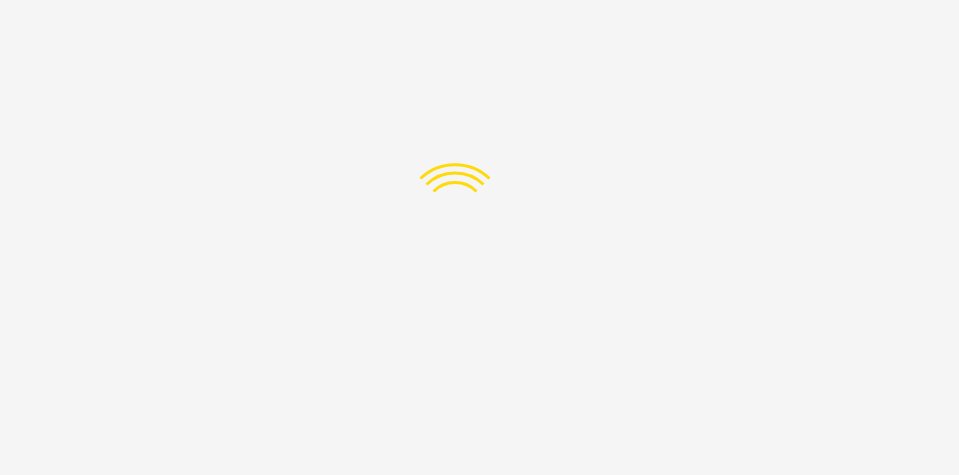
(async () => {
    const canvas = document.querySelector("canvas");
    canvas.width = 959;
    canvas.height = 475;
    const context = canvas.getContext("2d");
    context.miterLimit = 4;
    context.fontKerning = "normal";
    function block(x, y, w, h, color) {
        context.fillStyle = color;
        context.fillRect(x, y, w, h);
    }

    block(0, 0, 959, 475, "rgb(245, 245, 245)");
    context.beginPath();
    context.moveTo(420.5, 178.5);
    context.bezierCurveTo(439.5, 160, 470.5, 160, 489.5, 178.5);
    context.strokeStyle = "rgb(254, 218, 10)";
    context.lineWidth = 3;
    context.stroke();
    context.beginPath();
    context.moveTo(426.5, 184.5);
    context.bezierCurveTo(442, 169, 468, 169, 483.5, 184.5);
    context.moveTo(433.5, 191.5);
    context.bezierCurveTo(445, 179.5, 465, 179.5, 476.5, 191.5);
    context.stroke();
})();
